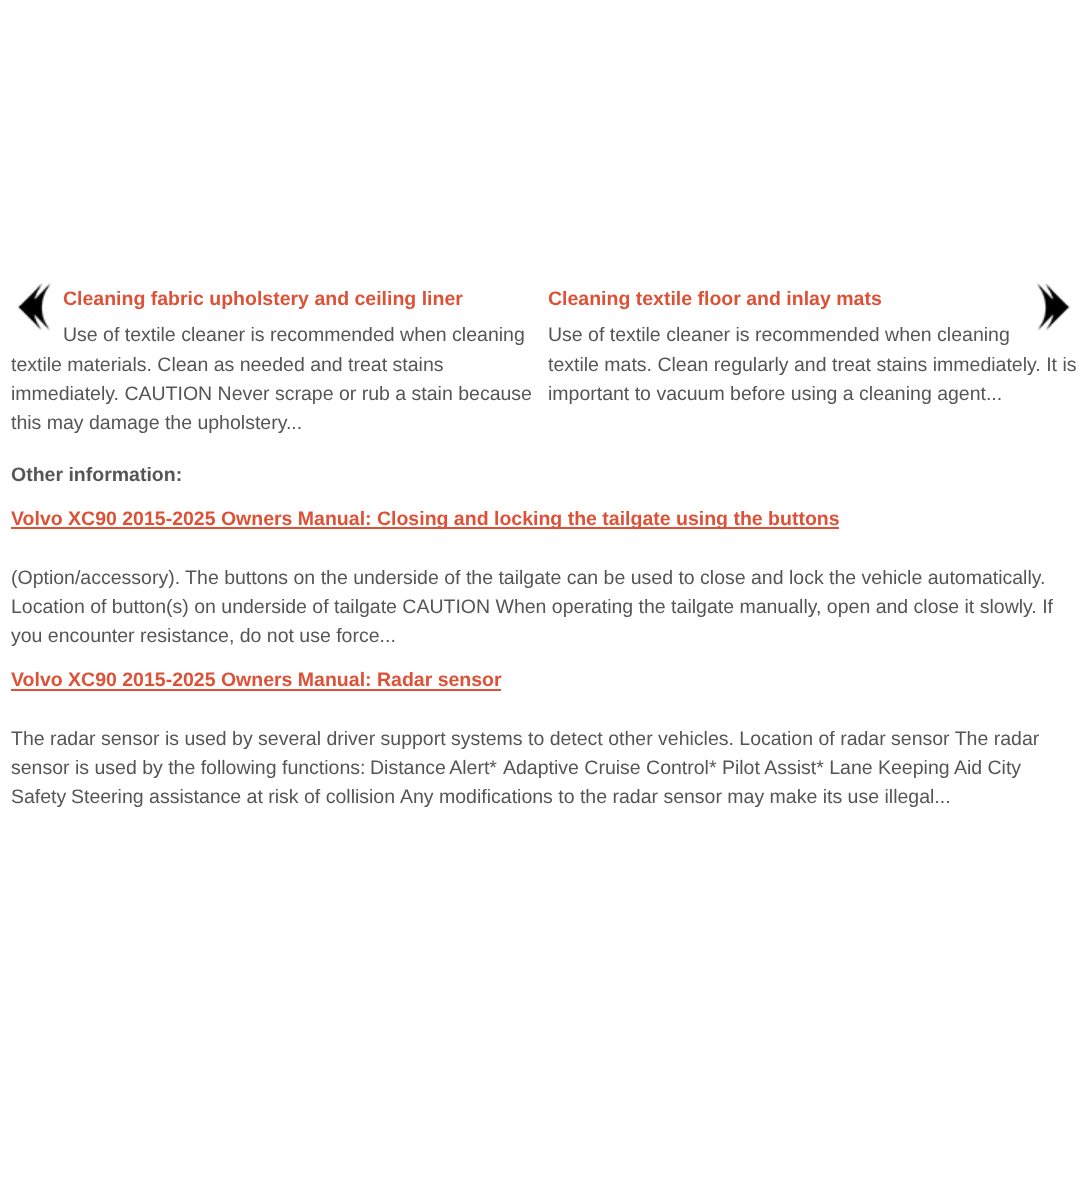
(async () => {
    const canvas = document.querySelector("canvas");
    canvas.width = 1087;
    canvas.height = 1189;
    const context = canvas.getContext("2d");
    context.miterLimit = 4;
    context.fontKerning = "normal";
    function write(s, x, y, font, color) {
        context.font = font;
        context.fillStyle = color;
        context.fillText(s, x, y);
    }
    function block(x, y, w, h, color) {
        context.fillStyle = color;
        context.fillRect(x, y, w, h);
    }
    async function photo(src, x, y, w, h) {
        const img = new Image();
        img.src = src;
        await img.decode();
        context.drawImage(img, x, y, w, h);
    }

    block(0, 0, 1087, 1189, "rgb(255, 255, 255)");
    await photo("media/1.png", 17, 283, 34, 48);
    write("Cleaning fabric upholstery and ceiling liner", 63, 305, "bold 19.5px Liberation Sans", "rgb(221, 81, 55)");
    write("Use of textile cleaner is recommended when cleaning", 63, 341, "19.5px Liberation Sans", "rgb(85, 85, 85)");
    write("textile materials. Clean as needed and treat stains", 11, 371, "19.5px Liberation Sans", "rgb(85, 85, 85)");
    write("immediately. CAUTION Never scrape or rub a stain because", 11, 400, "19.5px Liberation Sans", "rgb(85, 85, 85)");
    write("this may damage the upholstery...", 11, 429, "19.5px Liberation Sans", "rgb(85, 85, 85)");
    write("Cleaning textile floor and inlay mats", 548, 305, "bold 19.5px Liberation Sans", "rgb(221, 81, 55)");
    await photo("media/2.png", 1036, 283, 34, 48);
    write("Use of textile cleaner is recommended when cleaning", 548, 341, "19.5px Liberation Sans", "rgb(85, 85, 85)");
    write("textile mats. Clean regularly and treat stains immediately. It is", 548, 371, "19.5px Liberation Sans", "rgb(85, 85, 85)");
    write("important to vacuum before using a cleaning agent...", 548, 400, "19.5px Liberation Sans", "rgb(85, 85, 85)");
    write("Other information:", 11, 481, "bold 19.5px Liberation Sans", "rgb(85, 85, 85)");
    block(11, 527, 828, 2, "rgb(221, 81, 55)");
    write("Volvo XC90 2015-2025 Owners Manual: Closing and locking the tailgate using the buttons", 11, 525, "bold 19.5px Liberation Sans", "rgb(221, 81, 55)");
    write("(Option/accessory). The buttons on the underside of the tailgate can be used to close and lock the vehicle automatically.", 11, 584, "19.5px Liberation Sans", "rgb(85, 85, 85)");
    write("Location of button(s) on underside of tailgate CAUTION When operating the tailgate manually, open and close it slowly. If", 11, 613, "19.5px Liberation Sans", "rgb(85, 85, 85)");
    write("you encounter resistance, do not use force...", 11, 642, "19.5px Liberation Sans", "rgb(85, 85, 85)");
    write("Volvo XC90 2015-2025 Owners Manual: Radar sensor", 11, 686, "bold 19.5px Liberation Sans", "rgb(221, 81, 55)");
    block(11, 689, 490, 2, "rgb(221, 81, 55)");
    write("The radar sensor is used by several driver support systems to detect other vehicles. Location of radar sensor The radar", 11, 745, "19.5px Liberation Sans", "rgb(85, 85, 85)");
    write("sensor is used by the following functions:", 11, 774, "19.5px Liberation Sans", "rgb(85, 85, 85)");
    context.wordSpacing = "-1px";
    write("Distance Alert*", 370, 774, "19.5px Liberation Sans", "rgb(85, 85, 85)");
    context.wordSpacing = "0px";
    write("Adaptive Cruise Control* Pilot Assist* Lane Keeping Aid City", 503, 774, "19.5px Liberation Sans", "rgb(85, 85, 85)");
    write("Safety", 11, 803, "19.5px Liberation Sans", "rgb(85, 85, 85)");
    write("Steering assistance at risk of collision", 71, 803, "19.5px Liberation Sans", "rgb(85, 85, 85)");
    write("Any modifications to the radar sensor may make its use illegal...", 400, 803, "19.5px Liberation Sans", "rgb(85, 85, 85)");
})();
